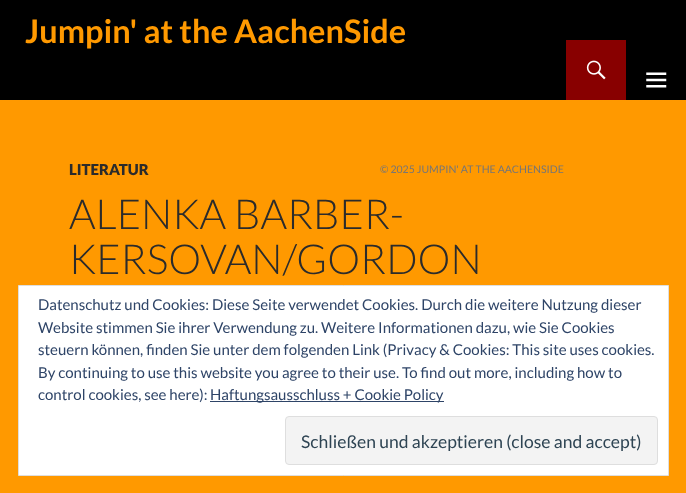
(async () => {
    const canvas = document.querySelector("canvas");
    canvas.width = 686;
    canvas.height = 493;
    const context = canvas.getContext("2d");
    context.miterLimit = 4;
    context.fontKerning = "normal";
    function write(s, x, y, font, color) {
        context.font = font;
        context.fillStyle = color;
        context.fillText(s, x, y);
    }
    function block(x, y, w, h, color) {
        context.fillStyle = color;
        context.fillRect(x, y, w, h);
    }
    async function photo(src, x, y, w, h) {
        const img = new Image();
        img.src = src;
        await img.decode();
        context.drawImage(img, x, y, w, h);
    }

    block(0, 0, 686, 493, "rgb(255, 153, 0)");
    block(0, 0, 686, 100, "rgb(0, 0, 0)");
    write("Jumpin' at the AachenSide", 25, 43, "bold 32.5px Lato", "rgb(255, 153, 0)");
    block(566, 40, 60, 60, "rgb(136, 0, 0)");
    await photo("media/1.png", 586, 60, 20, 20);
    await photo("media/2.png", 646, 72, 21, 16);
    write("LITERATUR", 69, 175, "900 15px Lato", "rgb(43, 43, 43)");
    write("© 2025 JUMPIN' AT THE AACHENSIDE", 380, 173, "10.5px Lato", "rgb(118, 118, 118)");
    write("ALENKA BARBER-", 69, 229, "300 41.25px Lato", "rgb(43, 43, 43)");
    write("KERSOVAN/GORDON", 69, 274, "300 41.25px Lato", "rgb(43, 43, 43)");
    context.fillStyle = "rgb(255, 255, 255)";
    context.beginPath();
    context.rect(18.5, 285.5, 650, 190);
    context.fill();
    context.strokeStyle = "rgb(222, 222, 222)";
    context.stroke();
    write("Datenschutz und Cookies: Diese Seite verwendet Cookies. Durch die weitere Nutzung dieser", 38, 310, "15px Lato", "rgb(46, 68, 103)");
    write("Website stimmen Sie ihrer Verwendung zu. Weitere Informationen dazu, wie Sie Cookies", 38, 333, "15px Lato", "rgb(46, 68, 103)");
    write("steuern können, finden Sie unter dem folgenden Link (Privacy & Cookies: This site uses cookies.", 38, 355, "15px Lato", "rgb(46, 68, 103)");
    write("By continuing to use this website you agree to their use. To find out more, including how to", 38, 378, "15px Lato", "rgb(46, 68, 103)");
    write("control cookies, see here):", 38, 400, "15px Lato", "rgb(46, 68, 103)");
    block(210, 401, 234, 1, "rgb(46, 68, 103)");
    write("Haftungsausschluss + Cookie Policy", 210, 400, "15px Lato", "rgb(46, 68, 103)");
    context.fillStyle = "rgb(243, 243, 243)";
    context.beginPath();
    context.roundRect(285.5, 416.5, 372, 48, 3.5);
    context.fill();
    context.stroke();
    write("Schließen und akzeptieren (close and accept)", 301, 448, "17.5px Lato", "rgb(46, 68, 83)");
})();
